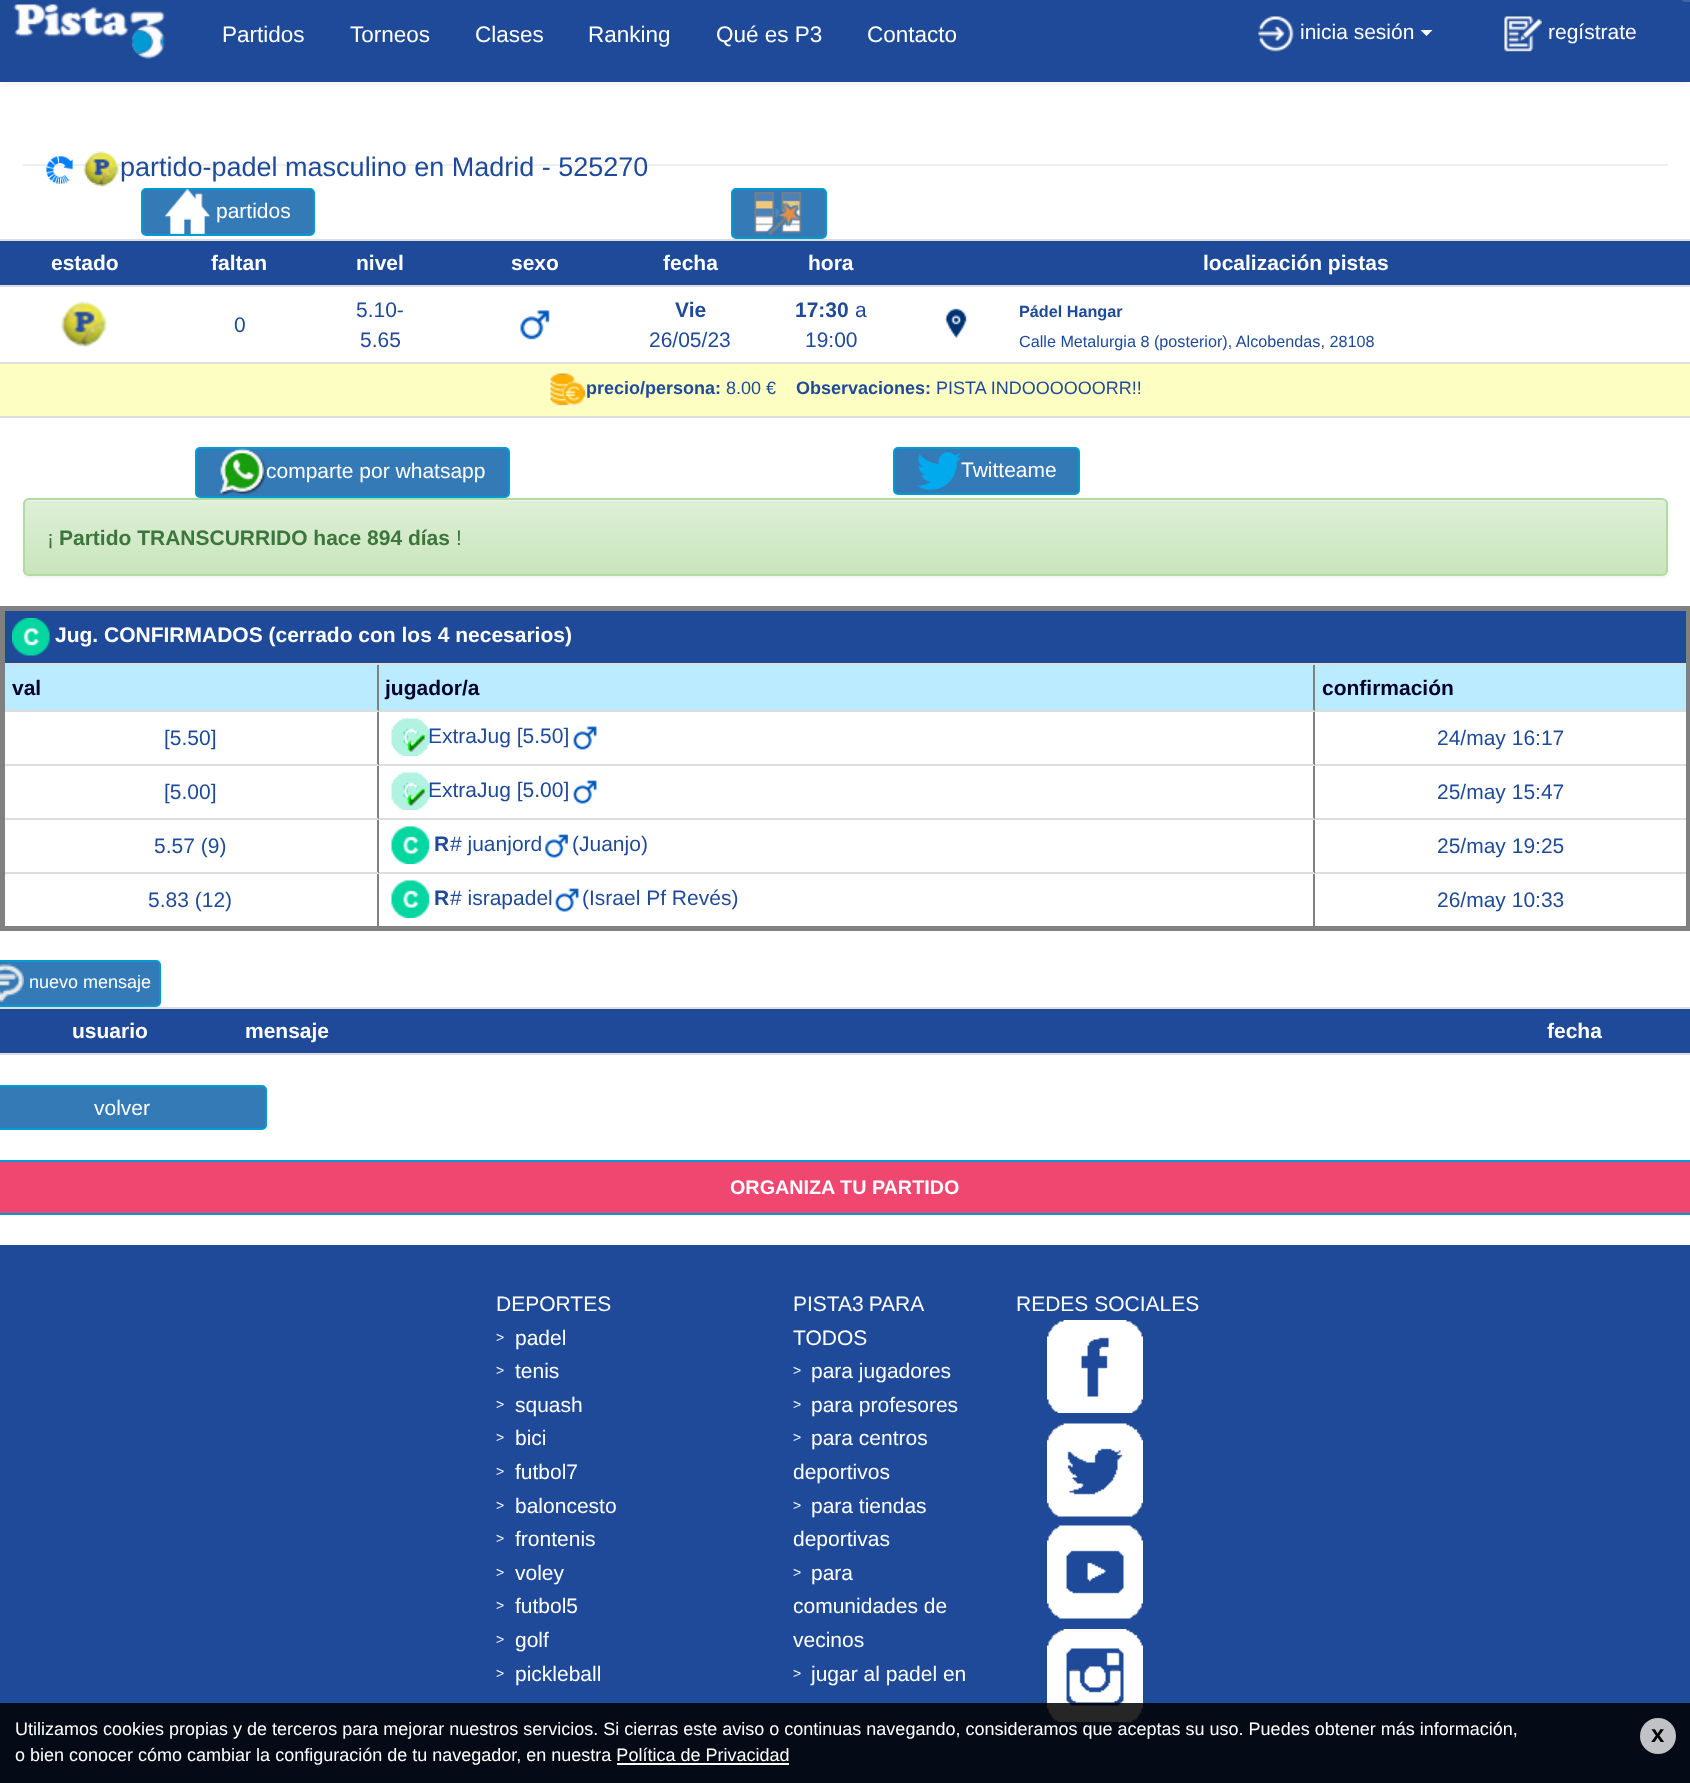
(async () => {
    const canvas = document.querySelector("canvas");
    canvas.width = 1690;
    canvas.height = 1783;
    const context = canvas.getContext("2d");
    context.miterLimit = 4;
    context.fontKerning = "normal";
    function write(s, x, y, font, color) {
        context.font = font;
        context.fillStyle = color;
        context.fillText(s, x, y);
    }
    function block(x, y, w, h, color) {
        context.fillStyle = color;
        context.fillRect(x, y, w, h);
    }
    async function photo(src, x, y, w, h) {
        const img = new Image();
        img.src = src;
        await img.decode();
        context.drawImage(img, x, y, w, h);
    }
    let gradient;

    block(0, 0, 1690, 1783, "rgb(255, 255, 255)");
    context.fillStyle = "rgba(0, 0, 0, 0.07)";
    context.filter = "blur(4px)";
    context.beginPath();
    context.rect(0, 2, 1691, 81);
    context.fill();
    context.filter = "none";
    block(0, 2, 1690, 80, "rgb(30, 74, 153)");
    block(1680, 0, 10, 2, "rgb(64, 101, 168)");
    block(11, 0, 1669, 2, "rgb(30, 74, 153)");
    await photo("media/1.png", 0, 0, 166, 59);
    write("Partidos", 222, 42, "22.5px Liberation Sans", "rgb(255, 255, 255)");
    write("Torneos", 350, 42, "22.5px Liberation Sans", "rgb(255, 255, 255)");
    write("Clases", 475, 42, "22.5px Liberation Sans", "rgb(255, 255, 255)");
    write("Ranking", 588, 42, "22.5px Liberation Sans", "rgb(255, 255, 255)");
    write("Qué es P3", 716, 42, "22.5px Liberation Sans", "rgb(255, 255, 255)");
    write("Contacto", 867, 42, "22.5px Liberation Sans", "rgb(255, 255, 255)");
    await photo("media/2.png", 1258, 15, 36, 37);
    write("inicia sesión", 1300, 39, "21px Liberation Sans", "rgb(255, 255, 255)");
    context.beginPath();
    context.moveTo(1420.5, 30);
    context.lineTo(1432.5, 30);
    context.lineTo(1426.5, 36);
    context.closePath();
    context.fill();
    context.fillStyle = "rgb(30, 74, 153)";
    context.beginPath();
    context.roundRect(1458, 1, 226, 63, 4);
    context.fill();
    context.strokeStyle = "rgb(30, 74, 153)";
    context.lineWidth = 2;
    context.stroke();
    await photo("media/3.png", 1504, 15, 38, 38);
    write("regístrate", 1548, 39, "21px Liberation Sans", "rgb(255, 255, 255)");
    block(0, 1245, 1690, 538, "rgb(30, 74, 153)");
    await photo("media/23.png", 1047, 1629, 96, 93);
    block(0, 1703, 1690, 80, "rgba(0, 0, 0, 0.85)");
    write("Utilizamos cookies propias y de terceros para mejorar nuestros servicios. Si cierras este aviso o continuas navegando, consideramos que aceptas su uso. Puedes obtener más información,", 15, 1735, "18px Liberation Sans", "rgb(255, 255, 255)");
    write("o bien conocer cómo cambiar la configuración de tu navegador, en nuestra Política de Privacidad", 15, 1761, "18px Liberation Sans", "rgb(255, 255, 255)");
    block(617, 1763, 172, 2, "rgb(255, 255, 255)");
    context.fillStyle = "rgb(192, 194, 197)";
    context.beginPath();
    context.arc(1658, 1736, 18, 0, Math.PI * 2);
    context.fill();
    write("x", 1651, 1742, "bold 24px Liberation Sans", "rgb(0, 0, 0)");
    block(23, 164, 1645, 2, "rgb(238, 238, 238)");
    await photo("media/4.png", 46, 155, 28, 29);
    await photo("media/5.png", 83, 151, 36, 36);
    write("partido-padel masculino en Madrid - 525270", 120, 176, "27px Liberation Sans", "rgb(30, 74, 153)");
    context.fillStyle = "rgb(51, 122, 183)";
    context.beginPath();
    context.roundRect(142, 189, 172, 46, 4);
    context.fill();
    context.strokeStyle = "rgb(1, 155, 212)";
    context.stroke();
    await photo("media/6.png", 165, 189, 45, 45);
    write("partidos", 216, 218, "21px Liberation Sans", "rgb(255, 255, 255)");
    context.fillStyle = "rgb(51, 122, 183)";
    context.beginPath();
    context.roundRect(732, 189, 94, 49, 4);
    context.fill();
    context.stroke();
    await photo("media/7.png", 754, 191, 48, 45);
    block(0, 241, 1690, 44, "rgb(30, 74, 153)");
    write("estado", 51, 270, "bold 21px Liberation Sans", "rgb(255, 255, 255)");
    write("faltan", 211, 270, "bold 21px Liberation Sans", "rgb(255, 255, 255)");
    write("nivel", 356, 270, "bold 21px Liberation Sans", "rgb(255, 255, 255)");
    write("sexo", 511, 270, "bold 21px Liberation Sans", "rgb(255, 255, 255)");
    write("fecha", 663, 270, "bold 21px Liberation Sans", "rgb(255, 255, 255)");
    write("hora", 808, 270, "bold 21px Liberation Sans", "rgb(255, 255, 255)");
    block(0, 239, 1690, 2, "rgb(221, 221, 221)");
    write("localización pistas", 1203, 270, "bold 21px Liberation Sans", "rgb(255, 255, 255)");
    await photo("media/8.png", 61, 301, 46, 46);
    write("0", 234, 332, "21px Liberation Sans", "rgb(30, 74, 153)");
    write("5.10-", 356, 317, "21px Liberation Sans", "rgb(30, 74, 153)");
    write("5.65", 360, 347, "21px Liberation Sans", "rgb(30, 74, 153)");
    await photo("media/9.png", 520, 310, 30, 30);
    write("Vie", 675, 317, "bold 21px Liberation Sans", "rgb(30, 74, 153)");
    write("26/05/23", 649, 347, "21px Liberation Sans", "rgb(30, 74, 153)");
    write("17:30", 795, 317, "bold 21px Liberation Sans", "rgb(30, 74, 153)");
    write("a", 855, 317, "21px Liberation Sans", "rgb(30, 74, 153)");
    write("19:00", 805, 347, "21px Liberation Sans", "rgb(30, 74, 153)");
    await photo("media/10.png", 945, 308, 22, 30);
    block(0, 285, 1690, 2, "rgb(221, 221, 221)");
    write("Pádel Hangar", 1019, 317, "bold 16.2px Liberation Sans", "rgb(30, 74, 153)");
    write("Calle Metalurgia 8 (posterior), Alcobendas, 28108", 1019, 347, "16.2px Liberation Sans", "rgb(30, 74, 153)");
    block(0, 364, 1690, 52, "rgb(253, 254, 194)");
    block(0, 362, 1690, 2, "rgb(221, 221, 221)");
    block(0, 416, 1690, 2, "rgb(221, 221, 221)");
    await photo("media/11.png", 550, 373, 36, 33);
    write("precio/persona:", 586, 394, "bold 18px Liberation Sans", "rgb(30, 74, 153)");
    write("8.00 €", 726, 394, "18px Liberation Sans", "rgb(30, 74, 153)");
    write("Observaciones:", 796, 394, "bold 18px Liberation Sans", "rgb(30, 74, 153)");
    write("PISTA INDOOOOOORR!!", 936, 394, "18px Liberation Sans", "rgb(30, 74, 153)");
    context.fillStyle = "rgba(0, 0, 0, 0.05)";
    context.filter = "blur(1.5px)";
    context.beginPath();
    context.roundRect(23, 500, 1645, 78, 6);
    context.fill();
    context.filter = "none";
    context.fillStyle = "rgb(51, 122, 183)";
    context.beginPath();
    context.roundRect(196, 448, 313, 49, 4);
    context.fill();
    context.stroke();
    await photo("media/12.png", 219, 448, 47, 48);
    write("comparte por whatsapp", 266, 478, "21px Liberation Sans", "rgb(255, 255, 255)");
    context.fillStyle = "rgb(51, 122, 183)";
    context.beginPath();
    context.roundRect(894, 448, 185, 46, 4);
    context.fill();
    context.stroke();
    await photo("media/13.png", 916, 452, 46, 38);
    write("Twitteame", 961, 477, "21px Liberation Sans", "rgb(255, 255, 255)");
    context.save();
    context.beginPath();
    context.roundRect(23, 498, 1645, 78, 6);
    context.clip();
    gradient = context.createLinearGradient(845, 499, 845, 575);
    gradient.addColorStop(0, "rgb(223, 240, 216)");
    gradient.addColorStop(1, "rgb(200, 229, 188)");
    context.fillStyle = gradient;
    context.fillRect(23, 500, 1645, 75);
    context.restore();
    context.fillStyle = "rgba(255, 255, 255, 0.25)";
    context.beginPath();
    context.moveTo(28, 501);
    context.lineTo(1662, 501);
    context.bezierCurveTo(1664, 501, 1666, 503, 1666, 506);
    context.lineTo(1666, 573);
    context.bezierCurveTo(1667, 572, 1667, 571, 1667, 570);
    context.lineTo(1667, 505);
    context.bezierCurveTo(1667, 502, 1665, 500, 1662, 500);
    context.lineTo(29, 500);
    context.bezierCurveTo(26, 500, 24, 502, 24, 505);
    context.lineTo(24, 506);
    context.bezierCurveTo(24, 503, 26, 501, 28, 501);
    context.closePath();
    context.fill();
    context.beginPath();
    context.roundRect(24, 499, 1643, 76, 5);
    context.strokeStyle = "rgb(178, 219, 161)";
    context.stroke();
    write("¡", 47, 545, "21px Liberation Sans", "rgb(60, 118, 61)");
    write("Partido TRANSCURRIDO hace 894 días", 59, 545, "bold 21px Liberation Sans", "rgb(60, 118, 61)");
    write("!", 456, 545, "21px Liberation Sans", "rgb(60, 118, 61)");
    block(0, 606, 1690, 5, "rgb(128, 128, 128)");
    block(5, 665, 1681, 45, "rgb(186, 235, 254)");
    block(1313, 872, 2, 57, "rgb(128, 128, 128)");
    block(1313, 872, 376, 2, "rgb(221, 221, 221)");
    block(1313, 818, 2, 55, "rgb(128, 128, 128)");
    block(1313, 818, 376, 2, "rgb(221, 221, 221)");
    block(1313, 764, 2, 55, "rgb(128, 128, 128)");
    block(1313, 764, 376, 2, "rgb(221, 221, 221)");
    block(1313, 710, 2, 55, "rgb(128, 128, 128)");
    block(1313, 710, 376, 2, "rgb(221, 221, 221)");
    block(1313, 663, 2, 48, "rgb(128, 128, 128)");
    block(377, 872, 2, 57, "rgb(128, 128, 128)");
    block(377, 872, 937, 2, "rgb(221, 221, 221)");
    block(377, 818, 2, 55, "rgb(128, 128, 128)");
    block(377, 818, 937, 2, "rgb(221, 221, 221)");
    block(377, 764, 2, 55, "rgb(128, 128, 128)");
    block(377, 764, 937, 2, "rgb(221, 221, 221)");
    block(377, 710, 2, 55, "rgb(128, 128, 128)");
    block(377, 710, 937, 2, "rgb(221, 221, 221)");
    block(377, 663, 2, 48, "rgb(128, 128, 128)");
    block(2, 663, 1687, 2, "rgb(221, 221, 221)");
    block(1686, 606, 4, 324, "rgb(128, 128, 128)");
    block(0, 926, 1690, 5, "rgb(128, 128, 128)");
    block(2, 710, 376, 2, "rgb(221, 221, 221)");
    block(2, 764, 376, 2, "rgb(221, 221, 221)");
    block(2, 818, 376, 2, "rgb(221, 221, 221)");
    block(2, 872, 376, 2, "rgb(221, 221, 221)");
    block(0, 606, 5, 324, "rgb(128, 128, 128)");
    block(5, 611, 1681, 52, "rgb(30, 74, 153)");
    await photo("media/14.png", 12, 618, 38, 38);
    write("Jug. CONFIRMADOS (cerrado con los 4 necesarios)", 55, 642, "bold 21px Liberation Sans", "rgb(255, 255, 255)");
    write("val", 12, 695, "bold 21px Liberation Sans", "rgb(0, 0, 46)");
    write("jugador/a", 385, 695, "bold 21px Liberation Sans", "rgb(0, 0, 46)");
    write("confirmación", 1322, 695, "bold 21px Liberation Sans", "rgb(0, 0, 46)");
    write("[5.50]", 164, 745, "21px Liberation Sans", "rgb(30, 74, 153)");
    await photo("media/15.png", 391, 718, 38, 38);
    write("ExtraJug [5.50]", 428, 743, "21px Liberation Sans", "rgb(30, 74, 153)");
    await photo("media/16.png", 573, 726, 24, 24);
    write("24/may 16:17", 1437, 745, "21px Liberation Sans", "rgb(30, 74, 153)");
    write("[5.00]", 164, 799, "21px Liberation Sans", "rgb(30, 74, 153)");
    await photo("media/15.png", 391, 772, 38, 38);
    write("ExtraJug [5.00]", 428, 797, "21px Liberation Sans", "rgb(30, 74, 153)");
    await photo("media/16.png", 573, 780, 24, 24);
    write("25/may 15:47", 1437, 799, "21px Liberation Sans", "rgb(30, 74, 153)");
    write("5.57 (9)", 154, 853, "21px Liberation Sans", "rgb(30, 74, 153)");
    await photo("media/17.png", 391, 826, 38, 38);
    write("R", 434, 851, "bold 21px Liberation Sans", "rgb(30, 74, 153)");
    write("# juanjord", 450, 851, "21px Liberation Sans", "rgb(30, 74, 153)");
    await photo("media/18.png", 545, 834, 23, 24);
    write("(Juanjo)", 572, 851, "21px Liberation Sans", "rgb(30, 74, 153)");
    write("25/may 19:25", 1437, 853, "21px Liberation Sans", "rgb(30, 74, 153)");
    write("5.83 (12)", 148, 907, "21px Liberation Sans", "rgb(30, 74, 153)");
    await photo("media/17.png", 391, 880, 38, 38);
    write("R", 434, 905, "bold 21px Liberation Sans", "rgb(30, 74, 153)");
    write("# israpadel", 450, 905, "21px Liberation Sans", "rgb(30, 74, 153)");
    await photo("media/16.png", 555, 888, 24, 24);
    write("(Israel Pf Revés)", 582, 905, "21px Liberation Sans", "rgb(30, 74, 153)");
    write("26/may 10:33", 1437, 907, "21px Liberation Sans", "rgb(30, 74, 153)");
    context.fillStyle = "rgb(51, 122, 183)";
    context.beginPath();
    context.roundRect(-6, 961, 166, 45, 4);
    context.fill();
    context.strokeStyle = "rgb(1, 155, 212)";
    context.stroke();
    await photo("media/19.png", 0, 964, 24, 38);
    write("nuevo mensaje", 29, 988, "18px Liberation Sans", "rgb(255, 255, 255)");
    block(0, 1009, 1690, 44, "rgb(30, 74, 153)");
    write("usuario", 72, 1038, "bold 21px Liberation Sans", "rgb(255, 255, 255)");
    write("mensaje", 245, 1038, "bold 21px Liberation Sans", "rgb(255, 255, 255)");
    block(0, 1007, 1690, 2, "rgb(221, 221, 221)");
    block(0, 1053, 1690, 2, "rgb(221, 221, 221)");
    write("fecha", 1547, 1038, "bold 21px Liberation Sans", "rgb(255, 255, 255)");
    context.fillStyle = "rgb(51, 122, 183)";
    context.beginPath();
    context.roundRect(-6, 1086, 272, 43, 4);
    context.fill();
    context.stroke();
    write("volver", 94, 1115, "21px Liberation Sans", "rgb(255, 255, 255)");
    context.fillStyle = "rgb(239, 71, 111)";
    context.beginPath();
    context.rect(-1, 1161, 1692, 53);
    context.fill();
    context.stroke();
    write("ORGANIZA TU PARTIDO", 730, 1194, "bold 19.75px Liberation Sans", "rgb(255, 255, 255)");
    write("DEPORTES", 496, 1311, "21px Liberation Sans", "rgb(255, 255, 255)");
    write(">", 496, 1342, "14px Liberation Sans", "rgb(255, 255, 255)");
    write("padel", 515, 1345, "21px Liberation Sans", "rgb(255, 255, 255)");
    write(">", 496, 1375, "14px Liberation Sans", "rgb(255, 255, 255)");
    write("tenis", 515, 1378, "21px Liberation Sans", "rgb(255, 255, 255)");
    write(">", 496, 1409, "14px Liberation Sans", "rgb(255, 255, 255)");
    write("squash", 515, 1412, "21px Liberation Sans", "rgb(255, 255, 255)");
    write(">", 496, 1442, "14px Liberation Sans", "rgb(255, 255, 255)");
    write("bici", 515, 1445, "21px Liberation Sans", "rgb(255, 255, 255)");
    write(">", 496, 1476, "14px Liberation Sans", "rgb(255, 255, 255)");
    write("futbol7", 515, 1479, "21px Liberation Sans", "rgb(255, 255, 255)");
    write(">", 496, 1510, "14px Liberation Sans", "rgb(255, 255, 255)");
    write("baloncesto", 515, 1513, "21px Liberation Sans", "rgb(255, 255, 255)");
    write(">", 496, 1543, "14px Liberation Sans", "rgb(255, 255, 255)");
    write("frontenis", 515, 1546, "21px Liberation Sans", "rgb(255, 255, 255)");
    write(">", 496, 1577, "14px Liberation Sans", "rgb(255, 255, 255)");
    write("voley", 515, 1580, "21px Liberation Sans", "rgb(255, 255, 255)");
    write(">", 496, 1610, "14px Liberation Sans", "rgb(255, 255, 255)");
    write("futbol5", 515, 1613, "21px Liberation Sans", "rgb(255, 255, 255)");
    write(">", 496, 1644, "14px Liberation Sans", "rgb(255, 255, 255)");
    write("golf", 515, 1647, "21px Liberation Sans", "rgb(255, 255, 255)");
    write(">", 496, 1678, "14px Liberation Sans", "rgb(255, 255, 255)");
    write("pickleball", 515, 1681, "21px Liberation Sans", "rgb(255, 255, 255)");
    context.wordSpacing = "-1px";
    write("PISTA3 PARA", 793, 1311, "21px Liberation Sans", "rgb(255, 255, 255)");
    context.wordSpacing = "0px";
    write("TODOS", 793, 1345, "21px Liberation Sans", "rgb(255, 255, 255)");
    write(">", 793, 1375, "14px Liberation Sans", "rgb(255, 255, 255)");
    write("para jugadores", 811, 1378, "21px Liberation Sans", "rgb(255, 255, 255)");
    write(">", 793, 1409, "14px Liberation Sans", "rgb(255, 255, 255)");
    write("para profesores", 811, 1412, "21px Liberation Sans", "rgb(255, 255, 255)");
    write(">", 793, 1442, "14px Liberation Sans", "rgb(255, 255, 255)");
    write("para centros", 811, 1445, "21px Liberation Sans", "rgb(255, 255, 255)");
    write("deportivos", 793, 1479, "21px Liberation Sans", "rgb(255, 255, 255)");
    write(">", 793, 1510, "14px Liberation Sans", "rgb(255, 255, 255)");
    write("para tiendas", 811, 1513, "21px Liberation Sans", "rgb(255, 255, 255)");
    write("deportivas", 793, 1546, "21px Liberation Sans", "rgb(255, 255, 255)");
    write(">", 793, 1577, "14px Liberation Sans", "rgb(255, 255, 255)");
    write("para", 811, 1580, "21px Liberation Sans", "rgb(255, 255, 255)");
    write("comunidades de", 793, 1613, "21px Liberation Sans", "rgb(255, 255, 255)");
    write("vecinos", 793, 1647, "21px Liberation Sans", "rgb(255, 255, 255)");
    write(">", 793, 1678, "14px Liberation Sans", "rgb(255, 255, 255)");
    write("jugar al padel en", 811, 1681, "21px Liberation Sans", "rgb(255, 255, 255)");
    write("REDES SOCIALES", 1016, 1311, "21px Liberation Sans", "rgb(255, 255, 255)");
    await photo("media/20.png", 1047, 1320, 96, 93);
    await photo("media/21.png", 1047, 1423, 96, 94);
    await photo("media/22.png", 1047, 1525, 96, 94);
})();
